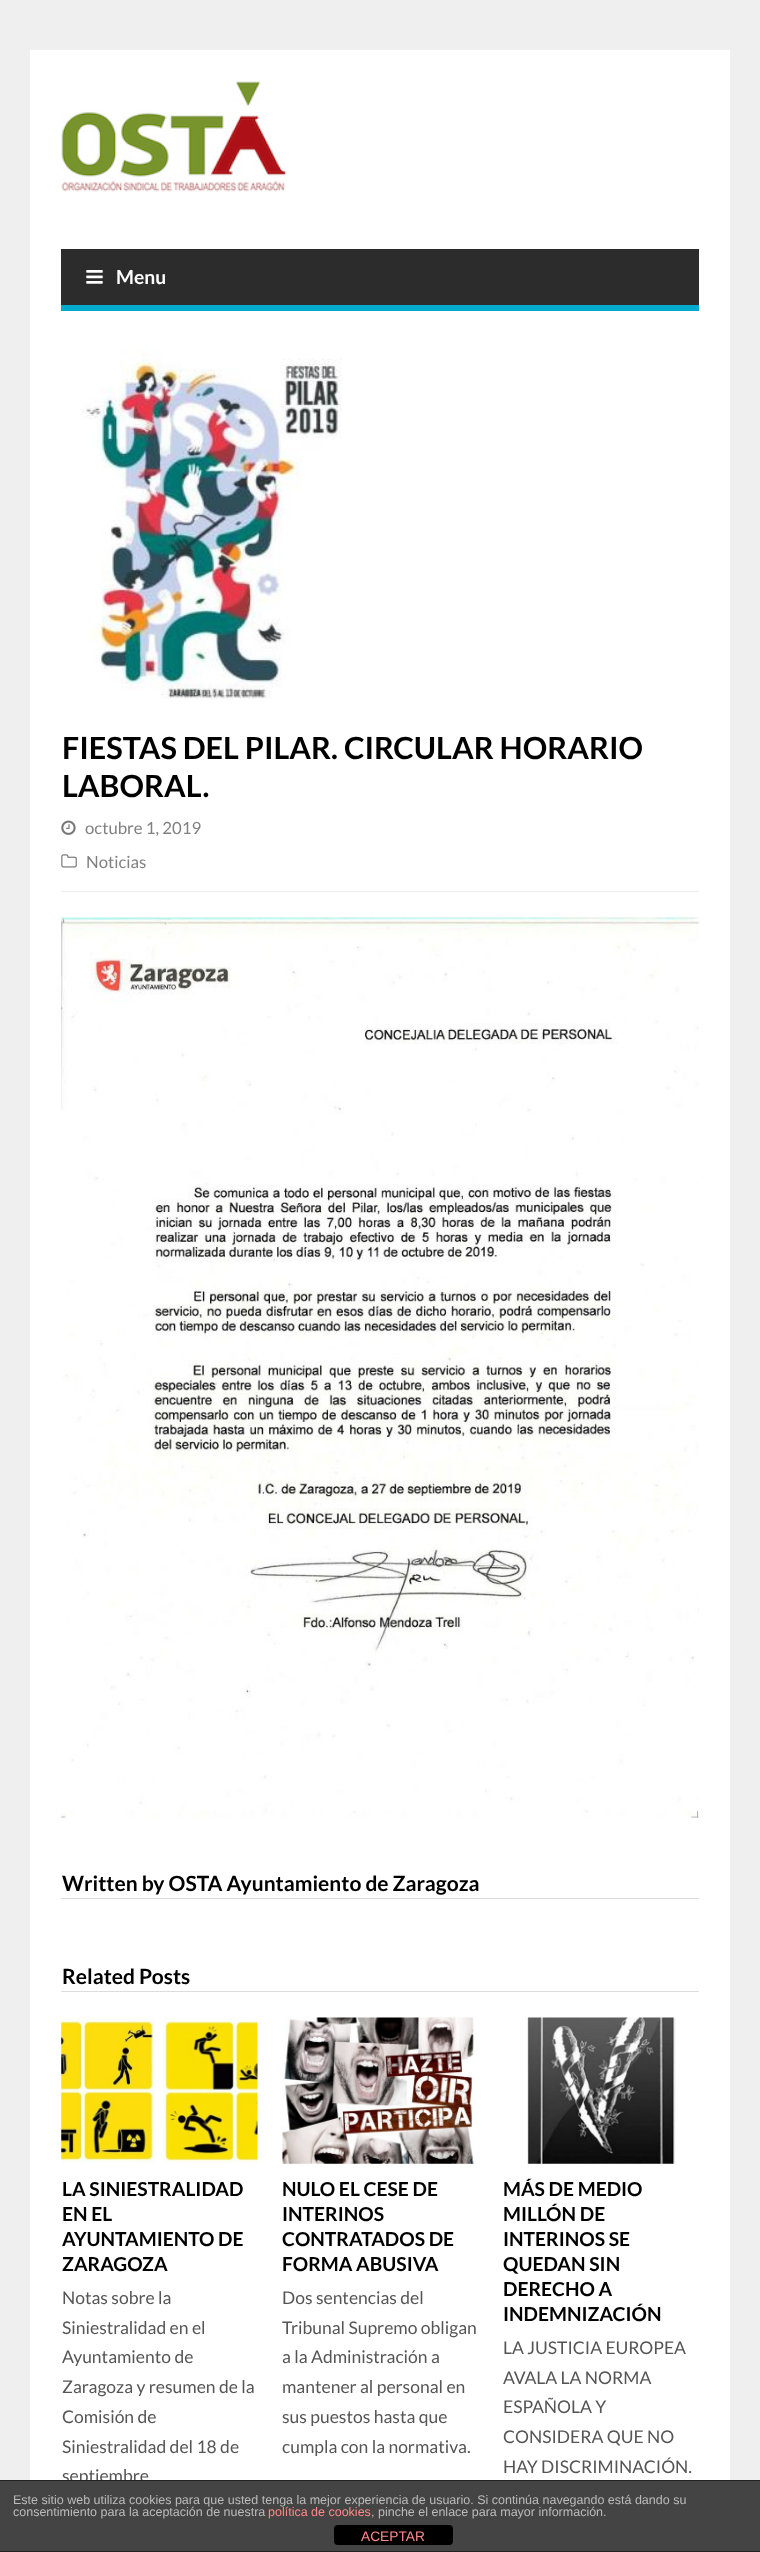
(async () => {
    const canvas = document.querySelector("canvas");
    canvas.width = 760;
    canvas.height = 2552;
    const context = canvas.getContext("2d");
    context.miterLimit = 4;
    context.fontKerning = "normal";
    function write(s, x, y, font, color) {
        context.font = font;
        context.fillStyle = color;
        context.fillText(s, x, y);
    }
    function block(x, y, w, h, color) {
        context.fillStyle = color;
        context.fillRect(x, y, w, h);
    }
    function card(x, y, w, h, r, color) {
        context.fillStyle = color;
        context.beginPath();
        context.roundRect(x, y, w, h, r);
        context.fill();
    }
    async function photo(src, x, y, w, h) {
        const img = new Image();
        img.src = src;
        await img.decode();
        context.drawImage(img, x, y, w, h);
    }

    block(0, 0, 760, 2552, "rgb(239, 239, 239)");
    block(30, 50, 700, 2430, "rgb(255, 255, 255)");
    await photo("media/1.png", 61, 81, 226, 111);
    block(61, 249, 638, 56, "rgb(44, 44, 44)");
    block(61, 305, 638, 6, "rgb(2, 170, 206)");
    await photo("media/2.png", 86, 270, 17, 14);
    write("Menu", 116, 284, "bold 19.25px Lato", "rgb(255, 255, 255)");
    await photo("media/3.png", 81, 349, 261, 350);
    block(61, 891, 638, 1, "rgb(238, 238, 238)");
    write("FIESTAS DEL PILAR. CIRCULAR HORARIO", 62, 759, "bold 30.6px Lato", "rgb(0, 0, 0)");
    write("LABORAL.", 62, 797, "bold 30.6px Lato", "rgb(0, 0, 0)");
    await photo("media/4.png", 61, 820, 15, 15);
    write("octubre 1, 2019", 85, 834, "16.75px Lato", "rgb(128, 128, 128)");
    await photo("media/5.png", 61, 854, 16, 14);
    write("Noticias", 86, 868, "16.75px Lato", "rgb(128, 128, 128)");
    await photo("media/6.png", 61, 917, 638, 901);
    block(61, 1898, 638, 1, "rgb(221, 221, 221)");
    write("Written by OSTA Ayuntamiento de Zaragoza", 62, 1891, "bold 21px Lato", "rgb(0, 0, 0)");
    block(61, 1991, 638, 1, "rgb(221, 221, 221)");
    write("Related Posts", 62, 1984, "bold 21px Lato", "rgb(0, 0, 0)");
    await photo("media/7.png", 61, 2017, 197, 147);
    write("LA SINIESTRALIDAD", 62, 2196, "bold 19.25px Lato", "rgb(0, 0, 0)");
    write("EN EL", 62, 2221, "bold 19.25px Lato", "rgb(0, 0, 0)");
    write("AYUNTAMIENTO DE", 62, 2246, "bold 19.25px Lato", "rgb(0, 0, 0)");
    write("ZARAGOZA", 62, 2271, "bold 19.25px Lato", "rgb(0, 0, 0)");
    write("Notas sobre la", 62, 2304, "17.5px Lato", "rgb(85, 85, 85)");
    write("Siniestralidad en el", 62, 2334, "17.5px Lato", "rgb(85, 85, 85)");
    write("Ayuntamiento de", 62, 2363, "17.5px Lato", "rgb(85, 85, 85)");
    write("Zaragoza y resumen de la", 62, 2393, "17.5px Lato", "rgb(85, 85, 85)");
    write("Comisión de", 62, 2423, "17.5px Lato", "rgb(85, 85, 85)");
    write("Siniestralidad del 18 de", 62, 2453, "17.5px Lato", "rgb(85, 85, 85)");
    write("septiembre", 62, 2482, "17.5px Lato", "rgb(85, 85, 85)");
    await photo("media/8.png", 282, 2017, 194, 147);
    write("NULO EL CESE DE", 282, 2196, "bold 19.25px Lato", "rgb(0, 0, 0)");
    write("INTERINOS", 282, 2221, "bold 19.25px Lato", "rgb(0, 0, 0)");
    write("CONTRATADOS DE", 282, 2246, "bold 19.25px Lato", "rgb(0, 0, 0)");
    write("FORMA ABUSIVA", 282, 2271, "bold 19.25px Lato", "rgb(0, 0, 0)");
    write("Dos sentencias del", 282, 2304, "17.5px Lato", "rgb(85, 85, 85)");
    write("Tribunal Supremo obligan", 282, 2334, "17.5px Lato", "rgb(85, 85, 85)");
    write("a la Administración a", 282, 2363, "17.5px Lato", "rgb(85, 85, 85)");
    write("mantener al personal en", 282, 2393, "17.5px Lato", "rgb(85, 85, 85)");
    write("sus puestos hasta que", 282, 2423, "17.5px Lato", "rgb(85, 85, 85)");
    write("cumpla con la normativa.", 282, 2453, "17.5px Lato", "rgb(85, 85, 85)");
    await photo("media/9.png", 527, 2017, 149, 147);
    write("MÁS DE MEDIO", 503, 2196, "bold 19.25px Lato", "rgb(0, 0, 0)");
    write("MILLÓN DE", 503, 2221, "bold 19.25px Lato", "rgb(0, 0, 0)");
    write("INTERINOS SE", 503, 2246, "bold 19.25px Lato", "rgb(0, 0, 0)");
    write("QUEDAN SIN", 503, 2271, "bold 19.25px Lato", "rgb(0, 0, 0)");
    write("DERECHO A", 503, 2296, "bold 19.25px Lato", "rgb(0, 0, 0)");
    write("INDEMNIZACIÓN", 503, 2321, "bold 19.25px Lato", "rgb(0, 0, 0)");
    write("LA JUSTICIA EUROPEA", 503, 2354, "17.5px Lato", "rgb(85, 85, 85)");
    write("AVALA LA NORMA", 503, 2384, "17.5px Lato", "rgb(85, 85, 85)");
    write("ESPAÑOLA Y", 503, 2413, "17.5px Lato", "rgb(85, 85, 85)");
    write("CONSIDERA QUE NO", 503, 2443, "17.5px Lato", "rgb(85, 85, 85)");
    write("HAY DISCRIMINACIÓN.", 503, 2473, "17.5px Lato", "rgb(85, 85, 85)");
    block(0, 2481, 760, 70, "rgb(68, 68, 68)");
    block(0, 2480, 760, 1, "rgb(34, 34, 34)");
    block(0, 2551, 760, 1, "rgb(34, 34, 34)");
    write("Este sitio web utiliza cookies para que usted tenga la mejor experiencia de usuario. Si continúa navegando está dando su", 13, 2504, "12.5px Liberation Sans", "rgb(187, 187, 187)");
    write("consentimiento para la aceptación de nuestra", 13, 2516, "12.5px Liberation Sans", "rgb(187, 187, 187)");
    write("política de cookies", 268, 2516, "12.5px Liberation Sans", "rgb(255, 136, 136)");
    write(", pinche el enlace para mayor información.", 371, 2516, "12.5px Liberation Sans", "rgb(187, 187, 187)");
    card(334, 2525, 119, 20, 4, "rgb(0, 0, 0)");
    write("ACEPTAR", 361, 2541, "13.75px Liberation Sans", "rgb(255, 136, 136)");
})();
